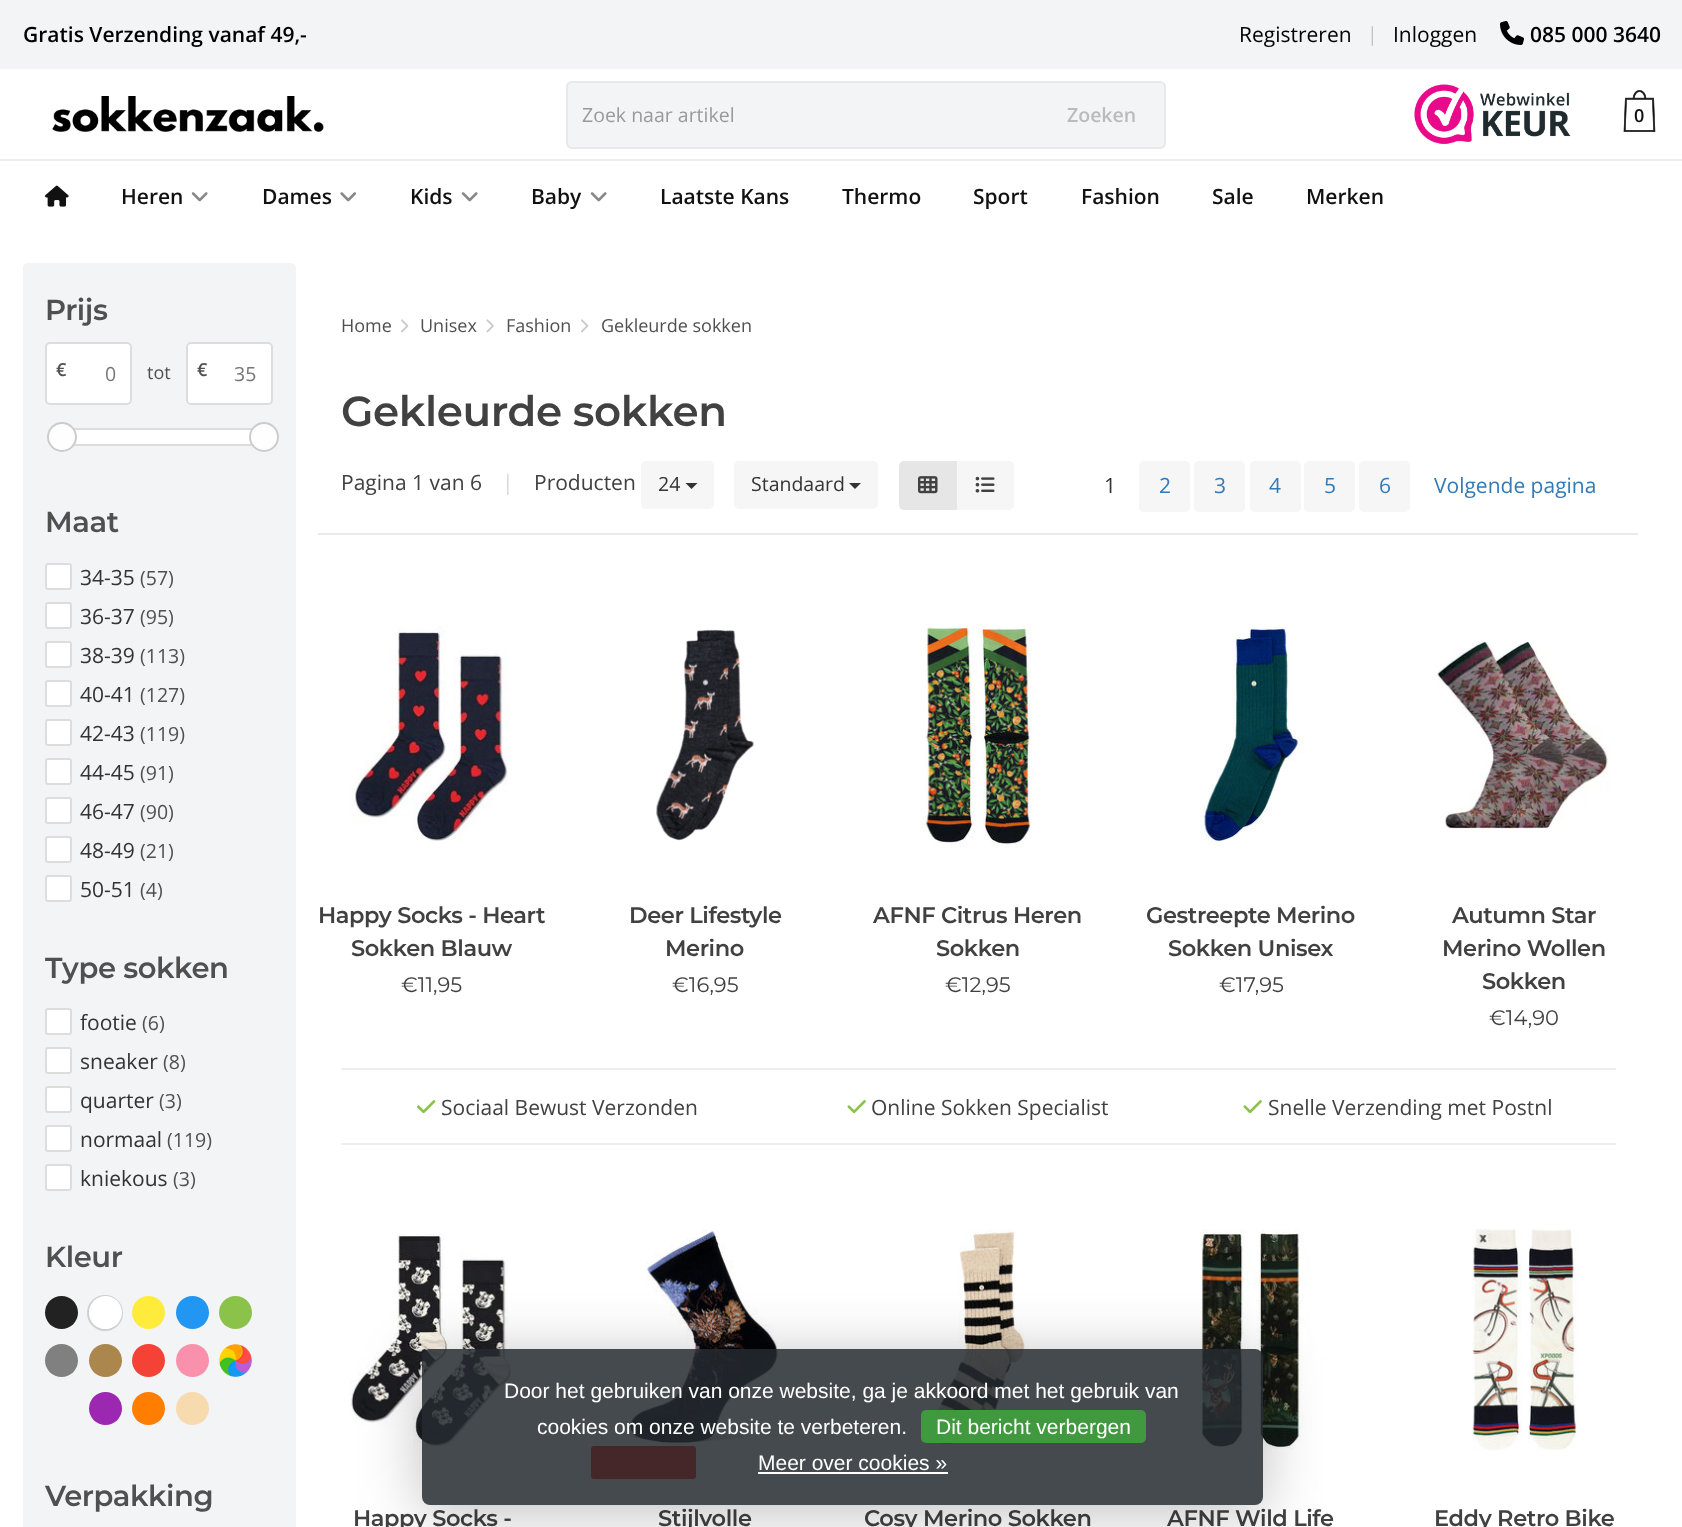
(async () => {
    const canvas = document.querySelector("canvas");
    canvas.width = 1682;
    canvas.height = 1527;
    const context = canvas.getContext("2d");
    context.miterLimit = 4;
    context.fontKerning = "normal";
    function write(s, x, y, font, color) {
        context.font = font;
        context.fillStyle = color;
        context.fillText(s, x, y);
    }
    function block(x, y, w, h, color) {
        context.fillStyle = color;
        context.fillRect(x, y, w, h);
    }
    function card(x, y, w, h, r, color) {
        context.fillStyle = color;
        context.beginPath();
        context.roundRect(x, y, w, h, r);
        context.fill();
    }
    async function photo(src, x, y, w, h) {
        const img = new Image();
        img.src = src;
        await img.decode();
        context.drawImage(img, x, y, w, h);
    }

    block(0, 0, 1682, 1527, "rgb(255, 255, 255)");
    block(0, 0, 1682, 69, "rgb(243, 244, 245)");
    write("Gratis Verzending vanaf 49,-", 23, 42, "600 21px Open Sans", "rgb(0, 0, 0)");
    write("Registreren", 1239, 42, "21px Open Sans", "rgb(0, 0, 0)");
    write("|", 1367, 41, "19.5px Open Sans", "rgb(194, 195, 196)");
    write("Inloggen", 1393, 42, "21px Open Sans", "rgb(0, 0, 0)");
    await photo("media/1.png", 1500, 21, 24, 24);
    write("085 000 3640", 1530, 42, "600 21px Open Sans", "rgb(0, 0, 0)");
    await photo("media/2.png", 52, 96, 272, 36);
    card(566, 81, 600, 68, 6, "rgb(243, 244, 245)");
    context.beginPath();
    context.roundRect(567, 82, 598, 66, 5);
    context.strokeStyle = "rgba(221, 221, 221, 0.5)";
    context.lineWidth = 2;
    context.stroke();
    write("Zoek naar artikel", 582, 122, "19.5px Open Sans", "rgb(153, 153, 153)");
    write("Zoeken", 1067, 122, "600 19.5px Open Sans", "rgb(187, 187, 187)");
    await photo("media/3.png", 1414, 84, 157, 60);
    await photo("media/4.png", 1623, 90, 33, 42);
    write("0", 1634, 122, "600 18px Open Sans", "rgb(17, 17, 17)");
    await photo("media/5.png", 45, 185, 24, 22);
    write("Heren", 121, 204, "600 21px Open Sans", "rgb(17, 17, 17)");
    await photo("media/6.png", 191, 192, 17, 10);
    write("Dames", 262, 204, "600 21px Open Sans", "rgb(17, 17, 17)");
    await photo("media/7.png", 340, 192, 16, 10);
    write("Kids", 410, 204, "600 21px Open Sans", "rgb(17, 17, 17)");
    await photo("media/6.png", 461, 192, 17, 10);
    write("Baby", 531, 204, "600 21px Open Sans", "rgb(17, 17, 17)");
    await photo("media/6.png", 590, 192, 17, 10);
    write("Laatste Kans", 660, 204, "600 21px Open Sans", "rgb(17, 17, 17)");
    write("Thermo", 842, 204, "600 21px Open Sans", "rgb(17, 17, 17)");
    write("Sport", 973, 204, "600 21px Open Sans", "rgb(17, 17, 17)");
    write("Fashion", 1081, 204, "600 21px Open Sans", "rgb(17, 17, 17)");
    write("Sale", 1212, 204, "600 21px Open Sans", "rgb(17, 17, 17)");
    write("Merken", 1306, 204, "600 21px Open Sans", "rgb(17, 17, 17)");
    block(0, 159, 1682, 2, "rgb(238, 238, 238)");
    card(23, 263, 273, 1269, 5, "rgb(243, 244, 245)");
    context.letterSpacing = "-0.4px";
    write("Prijs", 45, 320, "600 29px Montserrat", "rgb(80, 80, 80)");
    context.fillStyle = "rgb(255, 255, 255)";
    context.beginPath();
    context.roundRect(46, 343, 85, 61, 4);
    context.fill();
    context.strokeStyle = "rgb(221, 221, 221)";
    context.stroke();
    context.letterSpacing = "0px";
    write("€", 56, 376, "600 18px Open Sans", "rgb(80, 80, 80)");
    write("0", 105, 381, "19.5px Open Sans", "rgb(119, 119, 119)");
    write("tot", 147, 379, "18px Open Sans", "rgb(80, 80, 80)");
    context.fillStyle = "rgb(255, 255, 255)";
    context.beginPath();
    context.roundRect(187, 343, 85, 61, 4);
    context.fill();
    context.stroke();
    write("€", 197, 376, "600 18px Open Sans", "rgb(80, 80, 80)");
    write("35", 234, 381, "19.5px Open Sans", "rgb(119, 119, 119)");
    block(75, 430, 176, 14, "rgb(255, 255, 255)");
    context.strokeRect(52, 429, 201, 16);
    context.fillStyle = "rgb(254, 254, 254)";
    context.beginPath();
    context.arc(62, 437, 14, 0, Math.PI * 2);
    context.fill();
    context.strokeStyle = "rgb(204, 204, 204)";
    context.stroke();
    context.beginPath();
    context.arc(264, 437, 14, 0, Math.PI * 2);
    context.fill();
    context.stroke();
    context.letterSpacing = "-0.4px";
    write("Maat", 45, 532, "600 29px Montserrat", "rgb(80, 80, 80)");
    context.fillStyle = "rgb(255, 255, 255)";
    context.beginPath();
    context.roundRect(46, 564, 25, 25, 2);
    context.fill();
    context.strokeStyle = "rgb(221, 221, 221)";
    context.stroke();
    context.letterSpacing = "0px";
    write("34-35", 80, 585, "21px Open Sans", "rgb(51, 51, 51)");
    write("(57)", 140, 585, "19.5px Open Sans", "rgb(80, 80, 80)");
    context.fillStyle = "rgb(255, 255, 255)";
    context.beginPath();
    context.roundRect(46, 603, 25, 25, 2);
    context.fill();
    context.stroke();
    write("36-37", 80, 624, "21px Open Sans", "rgb(51, 51, 51)");
    write("(95)", 140, 624, "19.5px Open Sans", "rgb(80, 80, 80)");
    context.fillStyle = "rgb(255, 255, 255)";
    context.beginPath();
    context.roundRect(46, 642, 25, 25, 2);
    context.fill();
    context.stroke();
    write("38-39", 80, 663, "21px Open Sans", "rgb(51, 51, 51)");
    write("(113)", 140, 663, "19.5px Open Sans", "rgb(80, 80, 80)");
    context.fillStyle = "rgb(255, 255, 255)";
    context.beginPath();
    context.roundRect(46, 681, 25, 25, 2);
    context.fill();
    context.stroke();
    write("40-41", 80, 702, "21px Open Sans", "rgb(51, 51, 51)");
    write("(127)", 140, 702, "19.5px Open Sans", "rgb(80, 80, 80)");
    context.fillStyle = "rgb(255, 255, 255)";
    context.beginPath();
    context.roundRect(46, 720, 25, 25, 2);
    context.fill();
    context.stroke();
    write("42-43", 80, 741, "21px Open Sans", "rgb(51, 51, 51)");
    write("(119)", 140, 741, "19.5px Open Sans", "rgb(80, 80, 80)");
    context.fillStyle = "rgb(255, 255, 255)";
    context.beginPath();
    context.roundRect(46, 759, 25, 25, 2);
    context.fill();
    context.stroke();
    write("44-45", 80, 780, "21px Open Sans", "rgb(51, 51, 51)");
    write("(91)", 140, 780, "19.5px Open Sans", "rgb(80, 80, 80)");
    context.fillStyle = "rgb(255, 255, 255)";
    context.beginPath();
    context.roundRect(46, 798, 25, 25, 2);
    context.fill();
    context.stroke();
    write("46-47", 80, 819, "21px Open Sans", "rgb(51, 51, 51)");
    write("(90)", 140, 819, "19.5px Open Sans", "rgb(80, 80, 80)");
    context.fillStyle = "rgb(255, 255, 255)";
    context.beginPath();
    context.roundRect(46, 837, 25, 25, 2);
    context.fill();
    context.stroke();
    write("48-49", 80, 858, "21px Open Sans", "rgb(51, 51, 51)");
    write("(21)", 140, 858, "19.5px Open Sans", "rgb(80, 80, 80)");
    context.fillStyle = "rgb(255, 255, 255)";
    context.beginPath();
    context.roundRect(46, 876, 25, 25, 2);
    context.fill();
    context.stroke();
    write("50-51", 80, 897, "21px Open Sans", "rgb(51, 51, 51)");
    write("(4)", 140, 897, "19.5px Open Sans", "rgb(80, 80, 80)");
    context.letterSpacing = "-0.4px";
    write("Type sokken", 45, 978, "600 29px Montserrat", "rgb(80, 80, 80)");
    context.fillStyle = "rgb(255, 255, 255)";
    context.beginPath();
    context.roundRect(46, 1009, 25, 25, 2);
    context.fill();
    context.stroke();
    context.letterSpacing = "0px";
    write("footie", 80, 1030, "21px Open Sans", "rgb(51, 51, 51)");
    write("(6)", 142, 1030, "19.5px Open Sans", "rgb(80, 80, 80)");
    context.fillStyle = "rgb(255, 255, 255)";
    context.beginPath();
    context.roundRect(46, 1048, 25, 25, 2);
    context.fill();
    context.stroke();
    write("sneaker", 80, 1069, "21px Open Sans", "rgb(51, 51, 51)");
    write("(8)", 163, 1069, "19.5px Open Sans", "rgb(80, 80, 80)");
    context.fillStyle = "rgb(255, 255, 255)";
    context.beginPath();
    context.roundRect(46, 1087, 25, 25, 2);
    context.fill();
    context.stroke();
    write("quarter", 80, 1108, "21px Open Sans", "rgb(51, 51, 51)");
    write("(3)", 159, 1108, "19.5px Open Sans", "rgb(80, 80, 80)");
    context.fillStyle = "rgb(255, 255, 255)";
    context.beginPath();
    context.roundRect(46, 1126, 25, 25, 2);
    context.fill();
    context.stroke();
    write("normaal", 80, 1147, "21px Open Sans", "rgb(51, 51, 51)");
    write("(119)", 167, 1147, "19.5px Open Sans", "rgb(80, 80, 80)");
    context.fillStyle = "rgb(255, 255, 255)";
    context.beginPath();
    context.roundRect(46, 1165, 25, 25, 2);
    context.fill();
    context.stroke();
    write("kniekous", 80, 1186, "21px Open Sans", "rgb(51, 51, 51)");
    write("(3)", 173, 1186, "19.5px Open Sans", "rgb(80, 80, 80)");
    context.letterSpacing = "-0.4px";
    write("Kleur", 45, 1267, "600 29px Montserrat", "rgb(80, 80, 80)");
    context.fillStyle = "rgb(34, 34, 34)";
    context.beginPath();
    context.arc(61.5, 1312.5, 16.5, 0, Math.PI * 2);
    context.fill();
    context.beginPath();
    context.arc(105, 1313, 17, 0, Math.PI * 2);
    context.strokeStyle = "rgb(207, 207, 208)";
    context.stroke();
    context.fillStyle = "rgb(255, 255, 255)";
    context.beginPath();
    context.arc(105.5, 1312.5, 16.5, 0, Math.PI * 2);
    context.fill();
    context.fillStyle = "rgb(255, 235, 59)";
    context.beginPath();
    context.arc(148.5, 1312.5, 16.5, 0, Math.PI * 2);
    context.fill();
    context.fillStyle = "rgb(33, 150, 243)";
    context.beginPath();
    context.arc(192.5, 1312.5, 16.5, 0, Math.PI * 2);
    context.fill();
    context.fillStyle = "rgb(139, 195, 74)";
    context.beginPath();
    context.arc(235.5, 1312.5, 16.5, 0, Math.PI * 2);
    context.fill();
    context.fillStyle = "rgb(128, 128, 128)";
    context.beginPath();
    context.arc(61.5, 1360.5, 16.5, 0, Math.PI * 2);
    context.fill();
    context.fillStyle = "rgb(171, 134, 77)";
    context.beginPath();
    context.arc(105.5, 1360.5, 16.5, 0, Math.PI * 2);
    context.fill();
    context.fillStyle = "rgb(244, 67, 54)";
    context.beginPath();
    context.arc(148.5, 1360.5, 16.5, 0, Math.PI * 2);
    context.fill();
    context.fillStyle = "rgb(249, 145, 173)";
    context.beginPath();
    context.arc(192.5, 1360.5, 16.5, 0, Math.PI * 2);
    context.fill();
    await photo("media/8.png", 219, 1344, 33, 33);
    context.fillStyle = "rgb(156, 39, 176)";
    context.beginPath();
    context.arc(105.5, 1408.5, 16.5, 0, Math.PI * 2);
    context.fill();
    context.fillStyle = "rgb(255, 126, 0)";
    context.beginPath();
    context.arc(148.5, 1408.5, 16.5, 0, Math.PI * 2);
    context.fill();
    context.fillStyle = "rgb(247, 219, 175)";
    context.beginPath();
    context.arc(192.5, 1408.5, 16.5, 0, Math.PI * 2);
    context.fill();
    write("Verpakking", 45, 1506, "600 29px Montserrat", "rgb(80, 80, 80)");
    context.letterSpacing = "0px";
    write("Home", 341, 332, "18px Open Sans", "rgb(80, 80, 80)");
    await photo("media/9.png", 401, 319, 8, 14);
    write("Unisex", 420, 332, "18px Open Sans", "rgb(80, 80, 80)");
    await photo("media/10.png", 486, 319, 8, 14);
    write("Fashion", 506, 332, "18px Open Sans", "rgb(80, 80, 80)");
    await photo("media/9.png", 581, 319, 8, 14);
    write("Gekleurde sokken", 601, 332, "18px Open Sans", "rgb(80, 80, 80)");
    context.letterSpacing = "-0.4px";
    write("Gekleurde sokken", 341, 426, "600 42px Montserrat", "rgb(65, 65, 65)");
    context.letterSpacing = "0px";
    write("Pagina 1 van 6", 341, 490, "21px Open Sans", "rgb(65, 65, 65)");
    write("|", 502, 490, "21px Open Sans", "rgb(217, 217, 217)");
    write("Producten", 534, 490, "21px Open Sans", "rgb(65, 65, 65)");
    card(641, 461, 73, 48, 5, "rgb(246, 246, 246)");
    write("24", 658, 491, "19.5px Open Sans", "rgb(51, 51, 51)");
    context.beginPath();
    context.moveTo(685.5, 483);
    context.lineTo(697.5, 483);
    context.lineTo(691.5, 489);
    context.closePath();
    context.fill();
    card(734, 461, 144, 48, 5, "rgb(246, 246, 246)");
    write("Standaard", 751, 491, "19.5px Open Sans", "rgb(51, 51, 51)");
    context.beginPath();
    context.moveTo(849, 483);
    context.lineTo(861, 483);
    context.lineTo(855, 489);
    context.closePath();
    context.fill();
    context.fillStyle = "rgb(246, 246, 246)";
    context.beginPath();
    context.roundRect(956, 461, 58, 49, [0, 5, 5, 0]);
    context.fill();
    context.fillStyle = "rgb(230, 230, 230)";
    context.beginPath();
    context.roundRect(899, 461, 58, 49, [5, 0, 0, 5]);
    context.fill();
    await photo("media/11.png", 918, 476, 20, 18);
    await photo("media/12.png", 975, 476, 20, 17);
    write("1", 1104, 493, "21px Open Sans", "rgb(51, 51, 51)");
    card(1139, 461, 51, 51, 5, "rgb(246, 246, 246)");
    write("2", 1159, 493, "21px Open Sans", "rgb(51, 122, 183)");
    card(1194, 461, 51, 51, 5, "rgb(246, 246, 246)");
    write("3", 1214, 493, "21px Open Sans", "rgb(51, 122, 183)");
    card(1250, 461, 51, 51, 5, "rgb(246, 246, 246)");
    write("4", 1269, 493, "21px Open Sans", "rgb(51, 122, 183)");
    card(1304, 461, 51, 51, 5, "rgb(246, 246, 246)");
    write("5", 1324, 493, "21px Open Sans", "rgb(51, 122, 183)");
    card(1359, 461, 51, 51, 5, "rgb(246, 246, 246)");
    write("6", 1379, 493, "21px Open Sans", "rgb(51, 122, 183)");
    write("Volgende pagina", 1434, 493, "21px Open Sans", "rgb(51, 122, 183)");
    block(318, 533, 1320, 2, "rgb(234, 234, 234)");
    await photo("media/13.png", 351, 626, 158, 215);
    context.letterSpacing = "-0.4px";
    write("Happy Socks - Heart", 318, 923, "600 22.5px Montserrat", "rgb(65, 65, 65)");
    write("Sokken Blauw", 351, 956, "600 22.5px Montserrat", "rgb(65, 65, 65)");
    context.letterSpacing = "0px";
    write("€11,95", 401, 992, "21px Montserrat", "rgb(65, 65, 65)");
    await photo("media/14.png", 656, 629, 98, 212);
    context.letterSpacing = "-0.4px";
    write("Deer Lifestyle", 629, 923, "600 22.5px Montserrat", "rgb(65, 65, 65)");
    write("Merino", 665, 956, "600 22.5px Montserrat", "rgb(65, 65, 65)");
    context.letterSpacing = "0px";
    write("€16,95", 672, 992, "21px Montserrat", "rgb(65, 65, 65)");
    await photo("media/15.png", 922, 626, 109, 222);
    context.letterSpacing = "-0.4px";
    write("AFNF Citrus Heren", 873, 923, "600 22.5px Montserrat", "rgb(65, 65, 65)");
    write("Sokken", 936, 956, "600 22.5px Montserrat", "rgb(65, 65, 65)");
    context.letterSpacing = "0px";
    write("€12,95", 945, 992, "21px Montserrat", "rgb(65, 65, 65)");
    await photo("media/16.png", 1200, 626, 104, 220);
    context.letterSpacing = "-0.4px";
    write("Gestreepte Merino", 1146, 923, "600 22.5px Montserrat", "rgb(65, 65, 65)");
    write("Sokken Unisex", 1168, 956, "600 22.5px Montserrat", "rgb(65, 65, 65)");
    context.letterSpacing = "0px";
    write("€17,95", 1219, 992, "21px Montserrat", "rgb(65, 65, 65)");
    await photo("media/17.png", 1437, 641, 172, 188);
    context.letterSpacing = "-0.4px";
    write("Autumn Star", 1452, 923, "600 22.5px Montserrat", "rgb(65, 65, 65)");
    write("Merino Wollen", 1442, 956, "600 22.5px Montserrat", "rgb(65, 65, 65)");
    write("Sokken", 1482, 989, "600 22.5px Montserrat", "rgb(65, 65, 65)");
    context.letterSpacing = "0px";
    write("€14,90", 1489, 1025, "21px Montserrat", "rgb(65, 65, 65)");
    block(341, 1068, 1275, 2, "rgb(238, 238, 238)");
    block(341, 1143, 1275, 2, "rgb(238, 238, 238)");
    await photo("media/18.png", 417, 1100, 19, 14);
    write("Sociaal Bewust Verzonden", 441, 1115, "21px Open Sans", "rgb(65, 65, 65)");
    await photo("media/19.png", 847, 1100, 19, 14);
    write("Online Sokken Specialist", 871, 1115, "21px Open Sans", "rgb(65, 65, 65)");
    await photo("media/19.png", 1243, 1100, 19, 14);
    write("Snelle Verzending met Postnl", 1268, 1115, "21px Open Sans", "rgb(65, 65, 65)");
    await photo("media/20.png", 350, 1233, 164, 214);
    context.letterSpacing = "-0.4px";
    write("Happy Socks -", 353, 1526, "600 22.5px Montserrat", "rgb(65, 65, 65)");
    await photo("media/21.png", 624, 1229, 155, 214);
    card(591, 1446, 105, 33, 3, "rgb(255, 19, 0)");
    write("Stijlvolle", 658, 1526, "600 22.5px Montserrat", "rgb(65, 65, 65)");
    await photo("media/22.png", 928, 1229, 101, 217);
    write("Cosy Merino Sokken", 864, 1526, "600 22.5px Montserrat", "rgb(65, 65, 65)");
    await photo("media/23.png", 1200, 1229, 112, 221);
    write("AFNF Wild Life", 1167, 1526, "600 22.5px Montserrat", "rgb(65, 65, 65)");
    await photo("media/24.png", 1472, 1229, 105, 222);
    write("Eddy Retro Bike", 1434, 1526, "600 22.5px Montserrat", "rgb(65, 65, 65)");
    context.save();
    context.beginPath();
    context.moveTo(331, 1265);
    context.lineTo(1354, 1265);
    context.lineTo(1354, 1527);
    context.lineTo(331, 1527);
    context.closePath();
    context.moveTo(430, 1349);
    context.lineTo(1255, 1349);
    context.bezierCurveTo(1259.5, 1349, 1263, 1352.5, 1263, 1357);
    context.lineTo(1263, 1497);
    context.bezierCurveTo(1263, 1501.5, 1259.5, 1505, 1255, 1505);
    context.lineTo(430, 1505);
    context.bezierCurveTo(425.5, 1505, 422, 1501.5, 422, 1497);
    context.lineTo(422, 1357);
    context.bezierCurveTo(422, 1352.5, 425.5, 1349, 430, 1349);
    context.closePath();
    context.clip("evenodd");
    context.fillStyle = "rgba(0, 0, 0, 0.25)";
    context.filter = "blur(30px)";
    context.beginPath();
    context.roundRect(422, 1356, 841, 156, 8);
    context.fill();
    context.filter = "none";
    context.restore();
    card(422, 1349, 841, 156, 8, "rgba(36, 42, 48, 0.85)");
    context.letterSpacing = "0px";
    write("Door het gebruiken van onze website, ga je akkoord met het gebruik van", 504, 1398, "21px Liberation Sans", "rgb(255, 255, 255)");
    write("cookies om onze website te verbeteren.", 537, 1434, "21px Liberation Sans", "rgb(255, 255, 255)");
    card(921, 1410, 225, 33, 5, "rgb(64, 152, 63)");
    write("Dit bericht verbergen", 936, 1434, "21px Liberation Sans", "rgb(255, 255, 255)");
    write("Meer over cookies »", 758, 1470, "21px Liberation Sans", "rgb(255, 255, 255)");
    block(758, 1472, 190, 2, "rgb(255, 255, 255)");
})();
